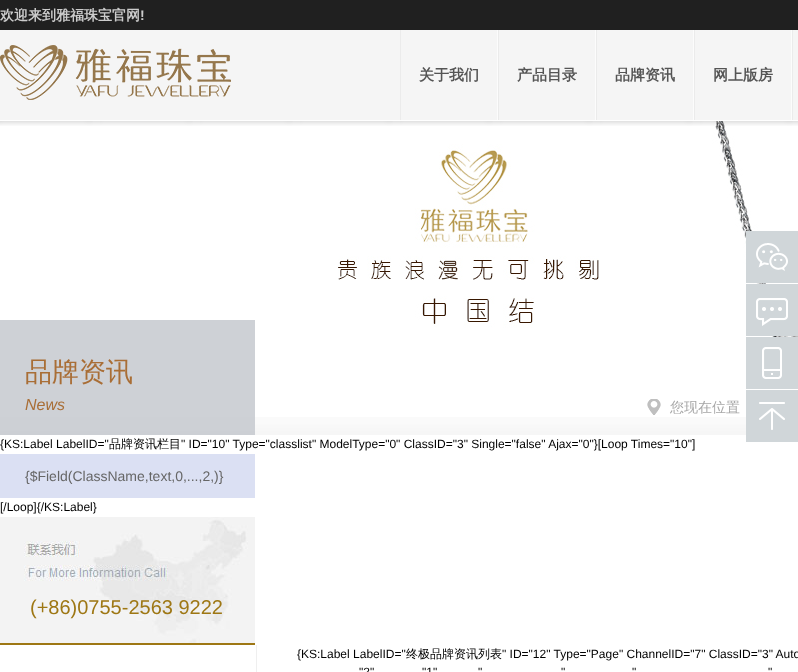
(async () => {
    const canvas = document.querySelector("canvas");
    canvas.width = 798;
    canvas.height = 672;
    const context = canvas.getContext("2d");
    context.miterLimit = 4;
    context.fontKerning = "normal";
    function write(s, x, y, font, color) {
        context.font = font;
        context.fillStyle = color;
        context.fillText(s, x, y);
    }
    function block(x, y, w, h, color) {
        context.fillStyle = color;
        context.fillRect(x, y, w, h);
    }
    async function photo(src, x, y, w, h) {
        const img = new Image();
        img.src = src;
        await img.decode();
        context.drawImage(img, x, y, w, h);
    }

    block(0, 0, 798, 672, "rgb(255, 255, 255)");
    block(0, 0, 798, 30, "rgb(32, 32, 32)");
    write("欢迎来到雅福珠宝官网", 0, 20, "bold 14px WenQuanYi Zen Hei", "rgb(204, 204, 204)");
    write("!", 140, 20, "bold 14px Liberation Sans", "rgb(204, 204, 204)");
    block(0, 30, 798, 90, "rgb(245, 245, 245)");
    await photo("media/1.png", 0, 45, 231, 55);
    block(497, 30, 1, 90, "rgb(252, 252, 252)");
    block(400, 30, 1, 90, "rgb(235, 235, 235)");
    write("关于我们", 419, 80, "bold 15px WenQuanYi Zen Hei", "rgb(85, 85, 85)");
    block(595, 30, 1, 90, "rgb(252, 252, 252)");
    block(498, 30, 1, 90, "rgb(235, 235, 235)");
    write("产品目录", 517, 80, "bold 15px WenQuanYi Zen Hei", "rgb(85, 85, 85)");
    block(693, 30, 1, 90, "rgb(252, 252, 252)");
    block(596, 30, 1, 90, "rgb(235, 235, 235)");
    write("品牌资讯", 615, 80, "bold 15px WenQuanYi Zen Hei", "rgb(85, 85, 85)");
    block(791, 30, 1, 90, "rgb(252, 252, 252)");
    block(694, 30, 1, 90, "rgb(235, 235, 235)");
    write("网上版房", 713, 80, "bold 15px WenQuanYi Zen Hei", "rgb(85, 85, 85)");
    block(792, 30, 1, 90, "rgb(235, 235, 235)");
    await photo("media/3.png", 338, 121, 460, 259);
    await photo("media/2.png", 0, 120, 798, 6);
    await photo("media/4.png", 746, 231, 52, 52);
    await photo("media/5.png", 746, 284, 52, 52);
    await photo("media/6.png", 746, 337, 52, 52);
    await photo("media/7.png", 746, 390, 52, 52);
    await photo("media/9.png", 0, 417, 746, 18);
    block(0, 320, 255, 115, "rgba(194, 198, 204, 0.8)");
    write("品牌资讯", 25, 381, "500 27px WenQuanYi Zen Hei", "rgb(169, 110, 54)");
    write("News", 25, 410, "italic 16px Liberation Sans", "rgb(169, 110, 54)");
    write("{KS:Label LabelID=\"", 0, 448, "12px Liberation Sans", "rgb(0, 0, 0)");
    write("品牌资讯栏目", 109, 448, "500 12px WenQuanYi Zen Hei", "rgb(0, 0, 0)");
    write("\" ID=\"10\" Type=\"classlist\" ModelType=\"0\" ClassID=\"3\" Single=\"false\" Ajax=\"0\"}[Loop Times=\"10\"]", 181, 448, "12px Liberation Sans", "rgb(0, 0, 0)");
    block(0, 454, 255, 44, "rgb(219, 224, 243)");
    write("{$Field(ClassName,text,0,...,2,)}", 25, 481, "14px Liberation Sans", "rgb(102, 102, 102)");
    write("[/Loop]{/KS:Label}", 0, 511, "12px Liberation Sans", "rgb(0, 0, 0)");
    await photo("media/8.png", 0, 517, 255, 126);
    block(0, 643, 255, 2, "rgb(158, 119, 20)");
    write("(+86)0755-2563 9222", 30, 614, "20px Liberation Sans", "rgb(158, 119, 20)");
    block(256, 645, 1, 27, "rgb(239, 239, 239)");
    write("{KS:Label LabelID=\"", 297, 658, "12px Liberation Sans", "rgb(0, 0, 0)");
    write("终极品牌资讯列表", 406, 658, "500 12px WenQuanYi Zen Hei", "rgb(0, 0, 0)");
    write("\" ID=\"12\" Type=\"Page\" ChannelID=\"7\" ClassID=\"3\" Auto", 502, 658, "12px Liberation Sans", "rgb(0, 0, 0)");
    write("\"2\"", 359, 676, "12px Liberation Sans", "rgb(0, 0, 0)");
    write("\"1\"", 422, 676, "12px Liberation Sans", "rgb(0, 0, 0)");
    write("\"", 478, 676, "12px Liberation Sans", "rgb(0, 0, 0)");
    write("\"", 561, 676, "12px Liberation Sans", "rgb(0, 0, 0)");
    write("\"", 632, 676, "12px Liberation Sans", "rgb(0, 0, 0)");
    write("\"", 768, 676, "12px Liberation Sans", "rgb(0, 0, 0)");
    await photo("media/10.png", 647, 399, 14, 16);
    write("您现在位置", 670, 412, "500 14px WenQuanYi Zen Hei", "rgb(167, 167, 167)");
})();
